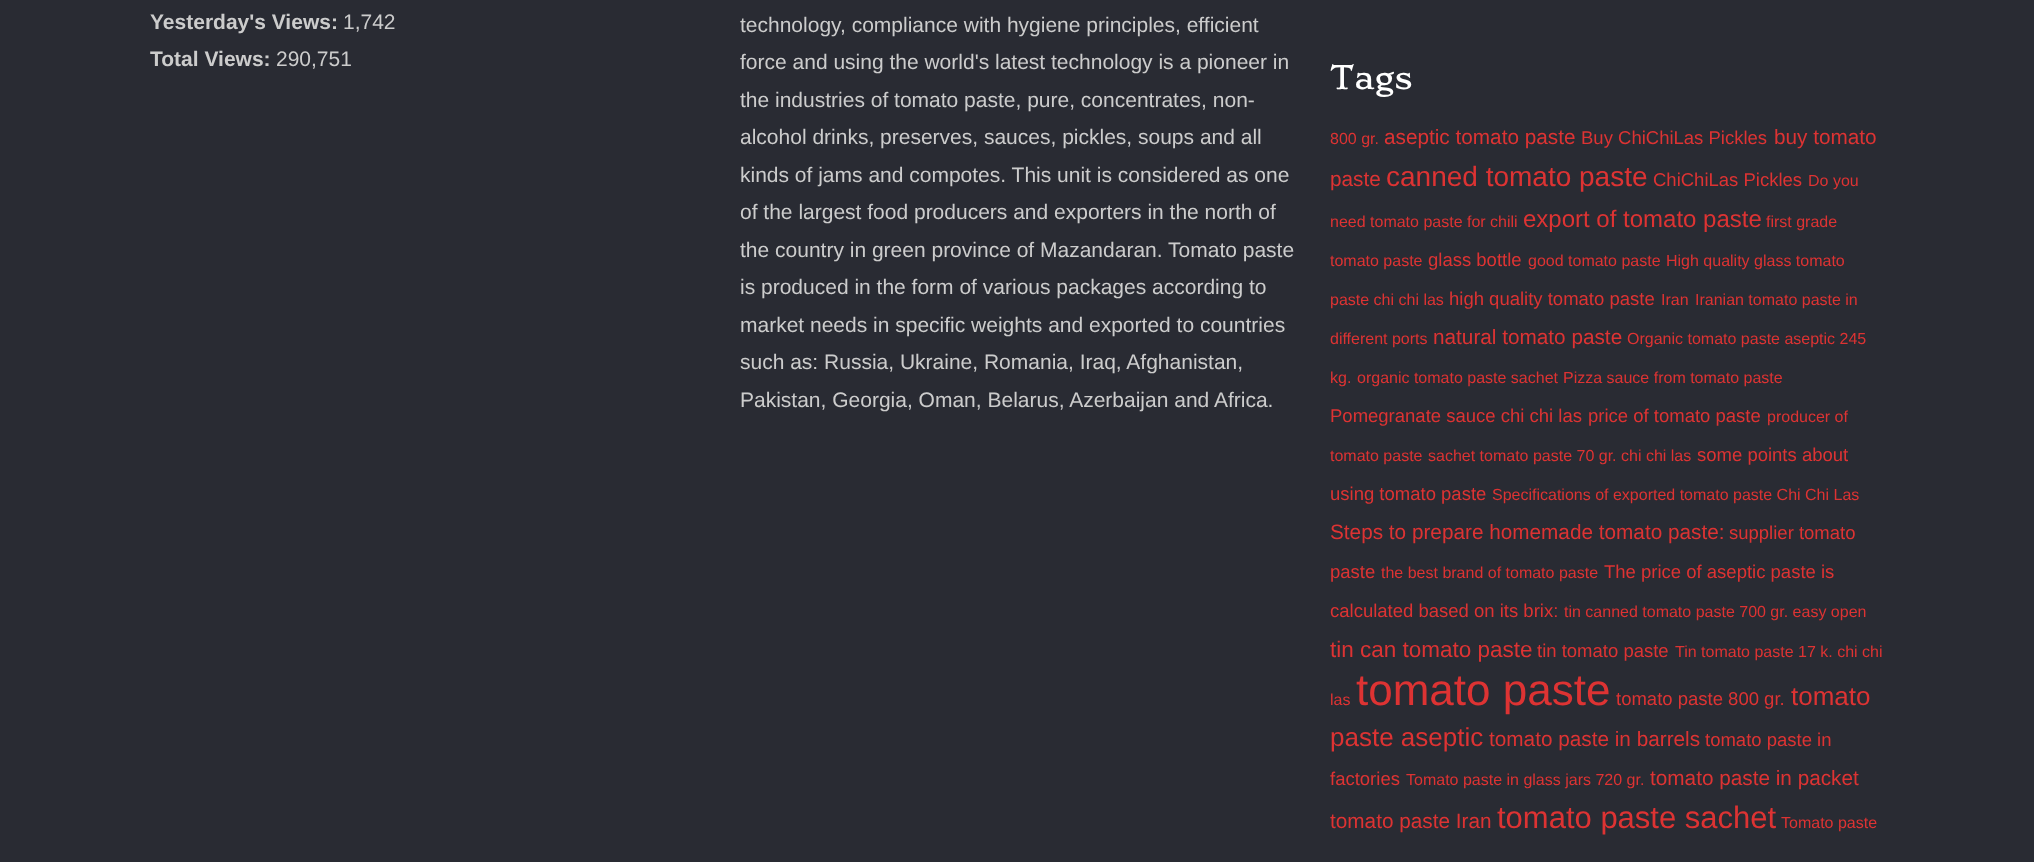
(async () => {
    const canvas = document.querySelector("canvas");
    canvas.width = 2034;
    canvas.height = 862;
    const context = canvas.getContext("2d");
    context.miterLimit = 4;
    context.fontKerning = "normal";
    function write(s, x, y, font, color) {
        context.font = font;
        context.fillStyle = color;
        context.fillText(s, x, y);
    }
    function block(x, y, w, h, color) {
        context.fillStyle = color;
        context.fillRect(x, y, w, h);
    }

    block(0, 0, 2034, 862, "rgb(41, 43, 51)");
    write("Yesterday's Views:", 150, 29, "bold 21px Liberation Sans", "rgb(204, 204, 204)");
    write("1,742", 343, 29, "21px Liberation Sans", "rgb(204, 204, 204)");
    write("Total Views:", 150, 66, "bold 21px Liberation Sans", "rgb(204, 204, 204)");
    write("290,751", 276, 66, "21px Liberation Sans", "rgb(204, 204, 204)");
    write("technology, compliance with hygiene principles, efficient", 740, 32, "21px Liberation Sans", "rgb(204, 204, 204)");
    write("force and using the world's latest technology is a pioneer in", 740, 69, "21px Liberation Sans", "rgb(204, 204, 204)");
    write("the industries of tomato paste, pure, concentrates, non-", 740, 107, "21px Liberation Sans", "rgb(204, 204, 204)");
    write("alcohol drinks, preserves, sauces, pickles, soups and all", 740, 144, "21px Liberation Sans", "rgb(204, 204, 204)");
    write("kinds of jams and compotes. This unit is considered as one", 740, 182, "21px Liberation Sans", "rgb(204, 204, 204)");
    write("of the largest food producers and exporters in the north of", 740, 219, "21px Liberation Sans", "rgb(204, 204, 204)");
    write("the country in green province of Mazandaran. Tomato paste", 740, 257, "21px Liberation Sans", "rgb(204, 204, 204)");
    write("is produced in the form of various packages according to", 740, 294, "21px Liberation Sans", "rgb(204, 204, 204)");
    write("market needs in specific weights and exported to countries", 740, 332, "21px Liberation Sans", "rgb(204, 204, 204)");
    write("such as: Russia, Ukraine, Romania, Iraq, Afghanistan,", 740, 369, "21px Liberation Sans", "rgb(204, 204, 204)");
    write("Pakistan, Georgia, Oman, Belarus, Azerbaijan and Africa.", 740, 407, "21px Liberation Sans", "rgb(204, 204, 204)");
    write("Tags", 1330, 89, "31.5px Stoke", "rgb(255, 255, 255)");
    write("800 gr.", 1330, 144, "16px Liberation Sans", "rgb(221, 51, 51)");
    write("aseptic tomato paste", 1384, 144, "20.75px Liberation Sans", "rgb(221, 51, 51)");
    write("Buy ChiChiLas Pickles", 1581, 144, "18.5px Liberation Sans", "rgb(221, 51, 51)");
    write("buy tomato", 1774, 144, "20.75px Liberation Sans", "rgb(221, 51, 51)");
    write("paste", 1330, 186, "20.75px Liberation Sans", "rgb(221, 51, 51)");
    write("canned tomato paste", 1386, 186, "28px Liberation Sans", "rgb(221, 51, 51)");
    write("ChiChiLas Pickles", 1653, 186, "18.5px Liberation Sans", "rgb(221, 51, 51)");
    write("Do you", 1808, 186, "16px Liberation Sans", "rgb(221, 51, 51)");
    write("need tomato paste for chili", 1330, 227, "16px Liberation Sans", "rgb(221, 51, 51)");
    write("export of tomato paste", 1523, 227, "24px Liberation Sans", "rgb(221, 51, 51)");
    write("first grade", 1766, 227, "16px Liberation Sans", "rgb(221, 51, 51)");
    write("tomato paste", 1330, 266, "16px Liberation Sans", "rgb(221, 51, 51)");
    write("glass bottle", 1428, 266, "18.5px Liberation Sans", "rgb(221, 51, 51)");
    write("good tomato paste", 1528, 266, "16px Liberation Sans", "rgb(221, 51, 51)");
    write("High quality glass tomato", 1666, 266, "16px Liberation Sans", "rgb(221, 51, 51)");
    write("paste chi chi las", 1330, 305, "16px Liberation Sans", "rgb(221, 51, 51)");
    write("high quality tomato paste", 1449, 305, "18.5px Liberation Sans", "rgb(221, 51, 51)");
    write("Iran", 1661, 305, "16px Liberation Sans", "rgb(221, 51, 51)");
    write("Iranian tomato paste in", 1695, 305, "16px Liberation Sans", "rgb(221, 51, 51)");
    write("different ports", 1330, 344, "16px Liberation Sans", "rgb(221, 51, 51)");
    write("natural tomato paste", 1433, 344, "20.75px Liberation Sans", "rgb(221, 51, 51)");
    write("Organic tomato paste aseptic 245", 1627, 344, "16px Liberation Sans", "rgb(221, 51, 51)");
    write("kg.", 1330, 383, "16px Liberation Sans", "rgb(221, 51, 51)");
    write("organic tomato paste sachet", 1357, 383, "16px Liberation Sans", "rgb(221, 51, 51)");
    write("Pizza sauce from tomato paste", 1563, 383, "16px Liberation Sans", "rgb(221, 51, 51)");
    write("Pomegranate sauce chi chi las", 1330, 422, "18.5px Liberation Sans", "rgb(221, 51, 51)");
    write("price of tomato paste", 1588, 422, "18.5px Liberation Sans", "rgb(221, 51, 51)");
    write("producer of", 1767, 422, "16px Liberation Sans", "rgb(221, 51, 51)");
    write("tomato paste", 1330, 461, "16px Liberation Sans", "rgb(221, 51, 51)");
    write("sachet tomato paste 70 gr. chi chi las", 1428, 461, "16px Liberation Sans", "rgb(221, 51, 51)");
    write("some points about", 1697, 461, "18.5px Liberation Sans", "rgb(221, 51, 51)");
    write("using tomato paste", 1330, 500, "18.5px Liberation Sans", "rgb(221, 51, 51)");
    write("Specifications of exported tomato paste Chi Chi Las", 1492, 500, "16px Liberation Sans", "rgb(221, 51, 51)");
    write("Steps to prepare homemade tomato paste:", 1330, 539, "20.75px Liberation Sans", "rgb(221, 51, 51)");
    write("supplier tomato", 1729, 539, "18.5px Liberation Sans", "rgb(221, 51, 51)");
    write("paste", 1330, 578, "18.5px Liberation Sans", "rgb(221, 51, 51)");
    write("the best brand of tomato paste", 1381, 578, "16px Liberation Sans", "rgb(221, 51, 51)");
    write("The price of aseptic paste is", 1604, 578, "18.5px Liberation Sans", "rgb(221, 51, 51)");
    write("calculated based on its brix:", 1330, 617, "18.5px Liberation Sans", "rgb(221, 51, 51)");
    write("tin canned tomato paste 700 gr. easy open", 1564, 617, "16px Liberation Sans", "rgb(221, 51, 51)");
    write("tin can tomato paste", 1330, 657, "22.5px Liberation Sans", "rgb(221, 51, 51)");
    write("tin tomato paste", 1537, 657, "18.5px Liberation Sans", "rgb(221, 51, 51)");
    write("Tin tomato paste 17 k. chi chi", 1675, 657, "16px Liberation Sans", "rgb(221, 51, 51)");
    write("las", 1330, 705, "16px Liberation Sans", "rgb(221, 51, 51)");
    write("tomato paste", 1356, 705, "44px Liberation Sans", "rgb(221, 51, 51)");
    write("tomato paste 800 gr.", 1616, 705, "18.5px Liberation Sans", "rgb(221, 51, 51)");
    write("tomato", 1791, 705, "26px Liberation Sans", "rgb(221, 51, 51)");
    write("paste aseptic", 1330, 746, "26px Liberation Sans", "rgb(221, 51, 51)");
    write("tomato paste in barrels", 1489, 746, "20.75px Liberation Sans", "rgb(221, 51, 51)");
    write("tomato paste in", 1705, 746, "18.5px Liberation Sans", "rgb(221, 51, 51)");
    write("factories", 1330, 785, "18.5px Liberation Sans", "rgb(221, 51, 51)");
    write("Tomato paste in glass jars 720 gr.", 1406, 785, "16px Liberation Sans", "rgb(221, 51, 51)");
    write("tomato paste in packet", 1650, 785, "20.75px Liberation Sans", "rgb(221, 51, 51)");
    write("tomato paste Iran", 1330, 828, "20.75px Liberation Sans", "rgb(221, 51, 51)");
    write("tomato paste sachet", 1497, 828, "31px Liberation Sans", "rgb(221, 51, 51)");
    write("Tomato paste", 1781, 828, "16px Liberation Sans", "rgb(221, 51, 51)");
})();
